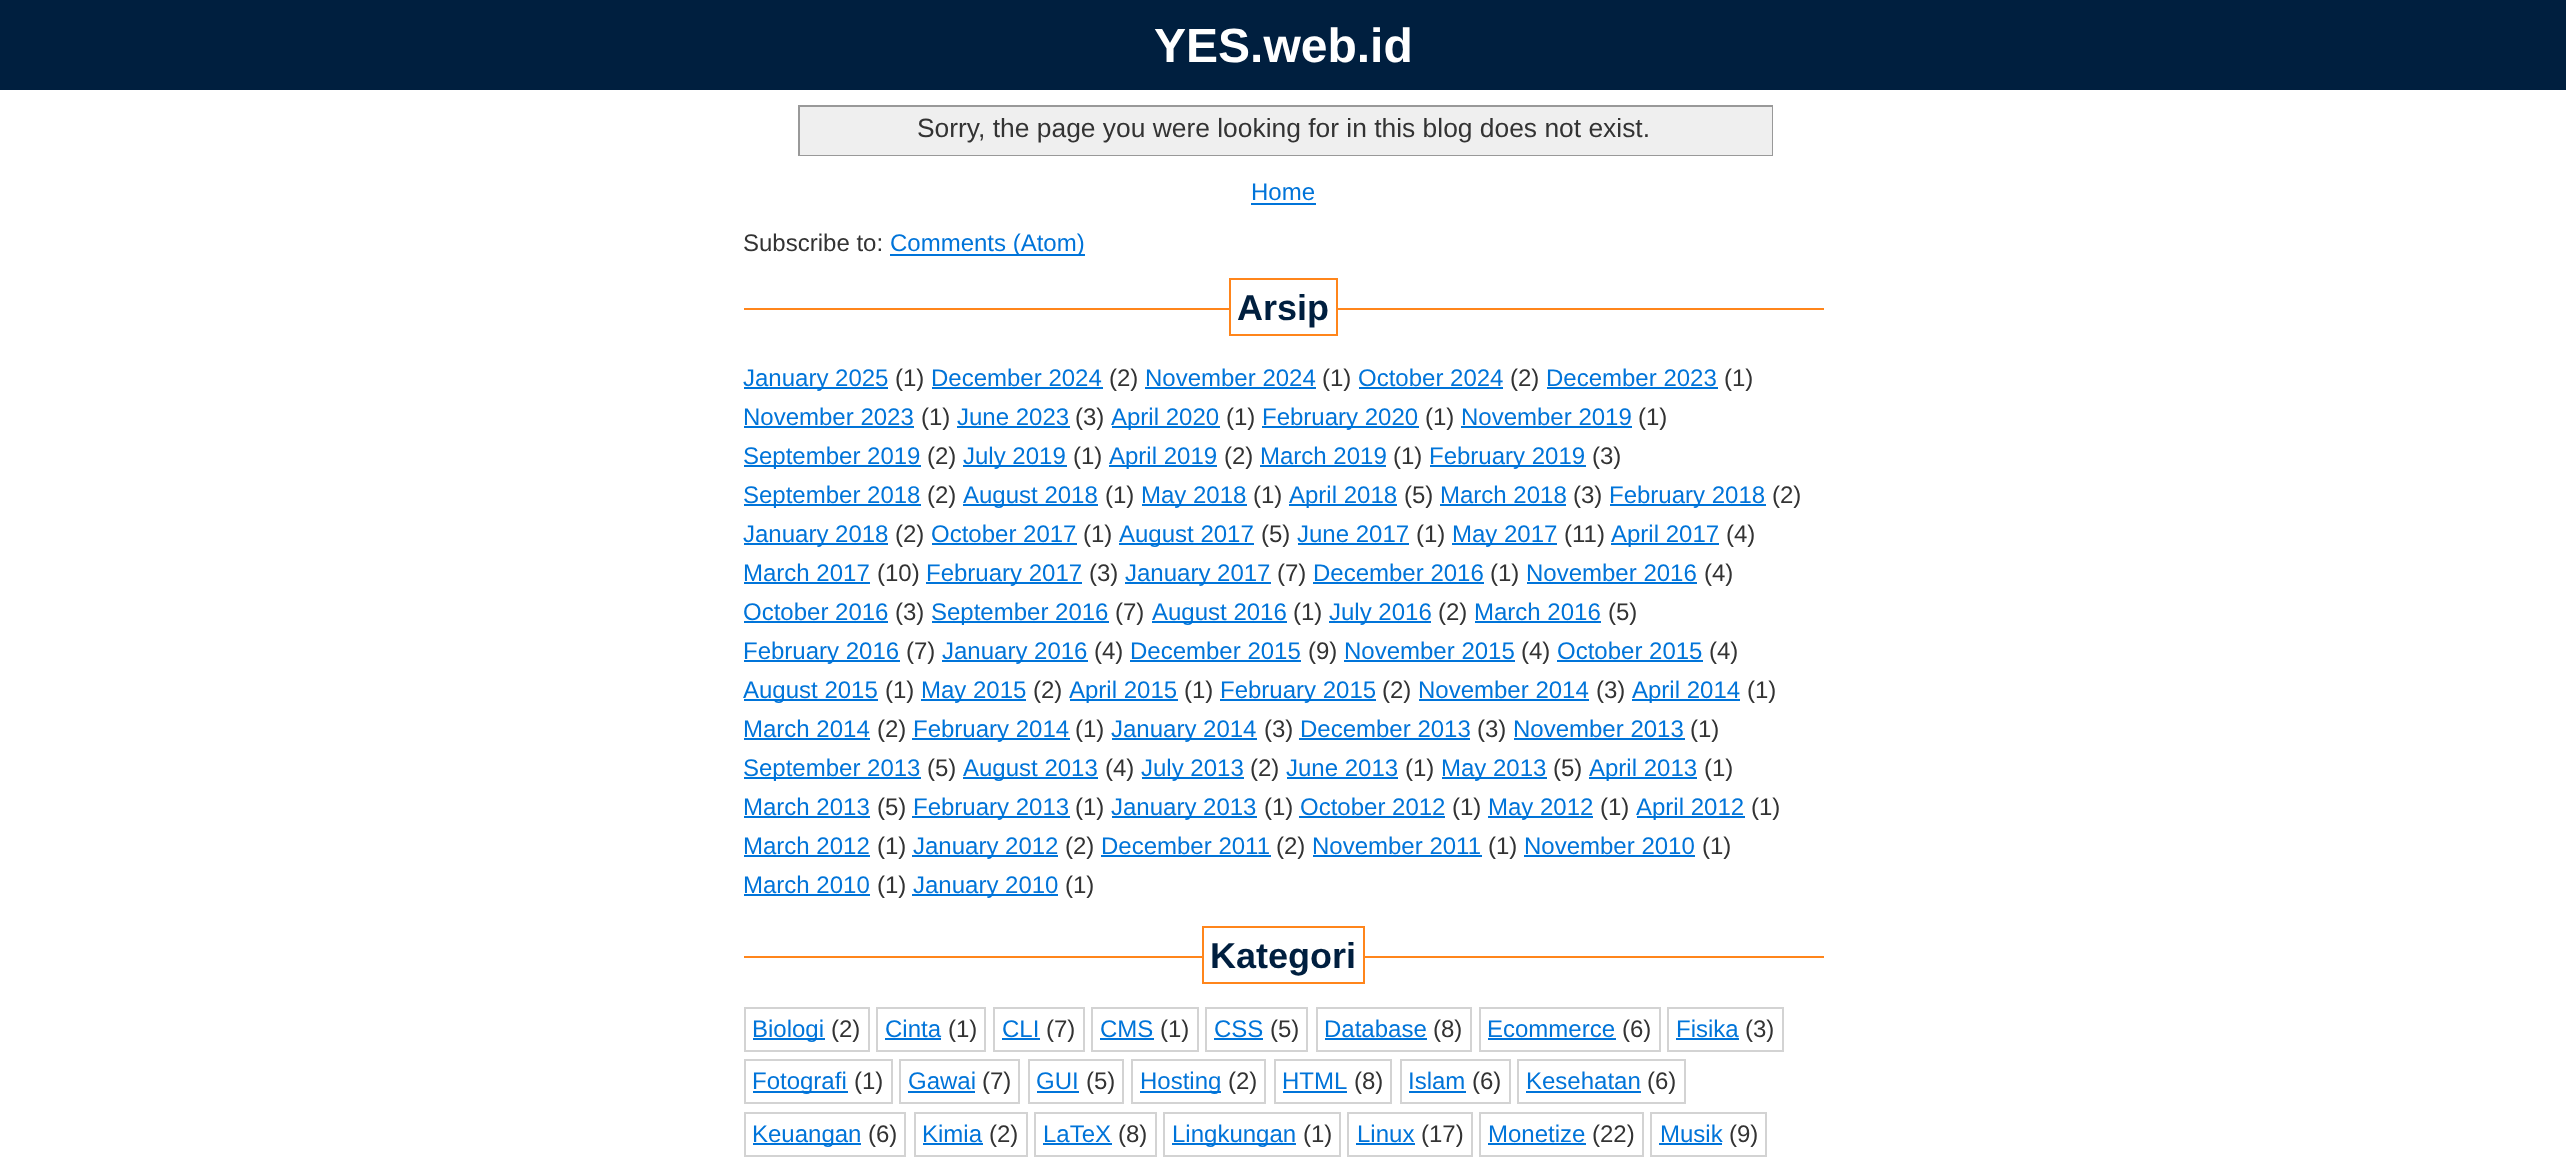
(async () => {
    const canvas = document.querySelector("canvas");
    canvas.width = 2566;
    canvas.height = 1164;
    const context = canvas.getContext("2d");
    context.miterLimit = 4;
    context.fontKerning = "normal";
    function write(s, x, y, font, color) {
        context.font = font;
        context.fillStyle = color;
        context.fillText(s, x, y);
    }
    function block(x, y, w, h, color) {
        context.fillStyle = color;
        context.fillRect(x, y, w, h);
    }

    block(0, 0, 2566, 1164, "rgb(255, 255, 255)");
    block(0, 0, 2566, 90, "rgb(0, 31, 63)");
    write("YES.web.id", 1154, 62, "bold 48px Liberation Sans", "rgb(255, 255, 255)");
    context.strokeStyle = "rgb(153, 153, 153)";
    context.lineWidth = 2;
    context.strokeRect(799, 106, 973, 49);
    block(800, 107, 972, 48, "rgb(239, 239, 239)");
    write("Sorry, the page you were looking for in this blog does not exist.", 917, 137, "26.4px Liberation Sans", "rgb(51, 51, 51)");
    write("Home", 1251, 200, "24px Liberation Sans", "rgb(0, 116, 217)");
    block(1251, 203, 65, 2, "rgb(0, 116, 217)");
    write("Subscribe to:", 743, 251, "24px Liberation Sans", "rgb(51, 51, 51)");
    block(890, 254, 195, 2, "rgb(0, 116, 217)");
    write("Comments (Atom)", 890, 251, "24px Liberation Sans", "rgb(0, 116, 217)");
    block(744, 308, 1080, 2, "rgb(255, 133, 27)");
    block(1231, 308, 105, 2, "rgb(255, 255, 255)");
    context.strokeStyle = "rgb(255, 133, 27)";
    context.strokeRect(1230, 279, 107, 56);
    write("Arsip", 1237, 320, "bold 36px Liberation Sans", "rgb(0, 31, 63)");
    block(744, 387, 144, 2, "rgb(0, 116, 217)");
    write("January 2025", 743, 386, "24px Liberation Sans", "rgb(0, 116, 217)");
    write("(1)", 895, 386, "24px Liberation Sans", "rgb(51, 51, 51)");
    write("December 2024", 931, 386, "24px Liberation Sans", "rgb(0, 116, 217)");
    block(932, 387, 171, 2, "rgb(0, 116, 217)");
    write("(2)", 1109, 386, "24px Liberation Sans", "rgb(51, 51, 51)");
    write("November 2024", 1145, 386, "24px Liberation Sans", "rgb(0, 116, 217)");
    block(1145, 387, 171, 2, "rgb(0, 116, 217)");
    write("(1)", 1322, 386, "24px Liberation Sans", "rgb(51, 51, 51)");
    write("October 2024", 1358, 386, "24px Liberation Sans", "rgb(0, 116, 217)");
    block(1359, 387, 144, 2, "rgb(0, 116, 217)");
    write("(2)", 1510, 386, "24px Liberation Sans", "rgb(51, 51, 51)");
    write("December 2023", 1546, 386, "24px Liberation Sans", "rgb(0, 116, 217)");
    block(1547, 387, 171, 2, "rgb(0, 116, 217)");
    write("(1)", 1724, 386, "24px Liberation Sans", "rgb(51, 51, 51)");
    write("November 2023", 743, 425, "24px Liberation Sans", "rgb(0, 116, 217)");
    block(744, 426, 170, 2, "rgb(0, 116, 217)");
    write("(1)", 921, 425, "24px Liberation Sans", "rgb(51, 51, 51)");
    write("June 2023", 957, 425, "24px Liberation Sans", "rgb(0, 116, 217)");
    block(957, 426, 113, 2, "rgb(0, 116, 217)");
    write("(3)", 1075, 425, "24px Liberation Sans", "rgb(51, 51, 51)");
    block(1112, 426, 108, 2, "rgb(0, 116, 217)");
    write("April 2020", 1111, 425, "24px Liberation Sans", "rgb(0, 116, 217)");
    write("(1)", 1226, 425, "24px Liberation Sans", "rgb(51, 51, 51)");
    block(1262, 426, 157, 2, "rgb(0, 116, 217)");
    write("February 2020", 1262, 425, "24px Liberation Sans", "rgb(0, 116, 217)");
    write("(1)", 1425, 425, "24px Liberation Sans", "rgb(51, 51, 51)");
    write("November 2019", 1461, 425, "24px Liberation Sans", "rgb(0, 116, 217)");
    block(1461, 426, 171, 2, "rgb(0, 116, 217)");
    write("(1)", 1638, 425, "24px Liberation Sans", "rgb(51, 51, 51)");
    block(744, 465, 177, 2, "rgb(0, 116, 217)");
    write("September 2019", 743, 464, "24px Liberation Sans", "rgb(0, 116, 217)");
    write("(2)", 927, 464, "24px Liberation Sans", "rgb(51, 51, 51)");
    block(963, 465, 104, 2, "rgb(0, 116, 217)");
    write("July 2019", 963, 464, "24px Liberation Sans", "rgb(0, 116, 217)");
    write("(1)", 1073, 464, "24px Liberation Sans", "rgb(51, 51, 51)");
    block(1109, 465, 108, 2, "rgb(0, 116, 217)");
    write("April 2019", 1109, 464, "24px Liberation Sans", "rgb(0, 116, 217)");
    write("(2)", 1224, 464, "24px Liberation Sans", "rgb(51, 51, 51)");
    write("March 2019", 1260, 464, "24px Liberation Sans", "rgb(0, 116, 217)");
    block(1260, 465, 126, 2, "rgb(0, 116, 217)");
    write("(1)", 1393, 464, "24px Liberation Sans", "rgb(51, 51, 51)");
    block(1430, 465, 156, 2, "rgb(0, 116, 217)");
    write("February 2019", 1429, 464, "24px Liberation Sans", "rgb(0, 116, 217)");
    write("(3)", 1592, 464, "24px Liberation Sans", "rgb(51, 51, 51)");
    block(744, 504, 177, 2, "rgb(0, 116, 217)");
    write("September 2018", 743, 503, "24px Liberation Sans", "rgb(0, 116, 217)");
    write("(2)", 927, 503, "24px Liberation Sans", "rgb(51, 51, 51)");
    block(963, 504, 135, 2, "rgb(0, 116, 217)");
    write("August 2018", 963, 503, "24px Liberation Sans", "rgb(0, 116, 217)");
    write("(1)", 1105, 503, "24px Liberation Sans", "rgb(51, 51, 51)");
    block(1142, 504, 105, 2, "rgb(0, 116, 217)");
    write("May 2018", 1141, 503, "24px Liberation Sans", "rgb(0, 116, 217)");
    write("(1)", 1253, 503, "24px Liberation Sans", "rgb(51, 51, 51)");
    block(1289, 504, 108, 2, "rgb(0, 116, 217)");
    write("April 2018", 1289, 503, "24px Liberation Sans", "rgb(0, 116, 217)");
    write("(5)", 1404, 503, "24px Liberation Sans", "rgb(51, 51, 51)");
    write("March 2018", 1440, 503, "24px Liberation Sans", "rgb(0, 116, 217)");
    block(1440, 504, 126, 2, "rgb(0, 116, 217)");
    write("(3)", 1573, 503, "24px Liberation Sans", "rgb(51, 51, 51)");
    block(1610, 504, 156, 2, "rgb(0, 116, 217)");
    write("February 2018", 1609, 503, "24px Liberation Sans", "rgb(0, 116, 217)");
    write("(2)", 1772, 503, "24px Liberation Sans", "rgb(51, 51, 51)");
    block(744, 543, 144, 2, "rgb(0, 116, 217)");
    write("January 2018", 743, 542, "24px Liberation Sans", "rgb(0, 116, 217)");
    write("(2)", 895, 542, "24px Liberation Sans", "rgb(51, 51, 51)");
    write("October 2017", 931, 542, "24px Liberation Sans", "rgb(0, 116, 217)");
    block(932, 543, 145, 2, "rgb(0, 116, 217)");
    write("(1)", 1083, 542, "24px Liberation Sans", "rgb(51, 51, 51)");
    block(1119, 543, 135, 2, "rgb(0, 116, 217)");
    write("August 2017", 1119, 542, "24px Liberation Sans", "rgb(0, 116, 217)");
    write("(5)", 1261, 542, "24px Liberation Sans", "rgb(51, 51, 51)");
    write("June 2017", 1297, 542, "24px Liberation Sans", "rgb(0, 116, 217)");
    block(1298, 543, 111, 2, "rgb(0, 116, 217)");
    write("(1)", 1416, 542, "24px Liberation Sans", "rgb(51, 51, 51)");
    block(1452, 543, 105, 2, "rgb(0, 116, 217)");
    write("May 2017", 1452, 542, "24px Liberation Sans", "rgb(0, 116, 217)");
    write("(11)", 1564, 542, "24px Liberation Sans", "rgb(51, 51, 51)");
    block(1611, 543, 108, 2, "rgb(0, 116, 217)");
    write("April 2017", 1611, 542, "24px Liberation Sans", "rgb(0, 116, 217)");
    write("(4)", 1726, 542, "24px Liberation Sans", "rgb(51, 51, 51)");
    write("March 2017", 743, 581, "24px Liberation Sans", "rgb(0, 116, 217)");
    block(744, 582, 126, 2, "rgb(0, 116, 217)");
    write("(10)", 877, 581, "24px Liberation Sans", "rgb(51, 51, 51)");
    block(926, 582, 156, 2, "rgb(0, 116, 217)");
    write("February 2017", 926, 581, "24px Liberation Sans", "rgb(0, 116, 217)");
    write("(3)", 1089, 581, "24px Liberation Sans", "rgb(51, 51, 51)");
    block(1125, 582, 146, 2, "rgb(0, 116, 217)");
    write("January 2017", 1125, 581, "24px Liberation Sans", "rgb(0, 116, 217)");
    write("(7)", 1277, 581, "24px Liberation Sans", "rgb(51, 51, 51)");
    write("December 2016", 1313, 581, "24px Liberation Sans", "rgb(0, 116, 217)");
    block(1313, 582, 171, 2, "rgb(0, 116, 217)");
    write("(1)", 1490, 581, "24px Liberation Sans", "rgb(51, 51, 51)");
    write("November 2016", 1526, 581, "24px Liberation Sans", "rgb(0, 116, 217)");
    block(1527, 582, 170, 2, "rgb(0, 116, 217)");
    write("(4)", 1704, 581, "24px Liberation Sans", "rgb(51, 51, 51)");
    write("October 2016", 743, 620, "24px Liberation Sans", "rgb(0, 116, 217)");
    block(744, 621, 144, 2, "rgb(0, 116, 217)");
    write("(3)", 895, 620, "24px Liberation Sans", "rgb(51, 51, 51)");
    block(932, 621, 177, 2, "rgb(0, 116, 217)");
    write("September 2016", 931, 620, "24px Liberation Sans", "rgb(0, 116, 217)");
    write("(7)", 1115, 620, "24px Liberation Sans", "rgb(51, 51, 51)");
    block(1152, 621, 135, 2, "rgb(0, 116, 217)");
    write("August 2016", 1152, 620, "24px Liberation Sans", "rgb(0, 116, 217)");
    write("(1)", 1293, 620, "24px Liberation Sans", "rgb(51, 51, 51)");
    block(1329, 621, 102, 2, "rgb(0, 116, 217)");
    write("July 2016", 1329, 620, "24px Liberation Sans", "rgb(0, 116, 217)");
    write("(2)", 1438, 620, "24px Liberation Sans", "rgb(51, 51, 51)");
    write("March 2016", 1474, 620, "24px Liberation Sans", "rgb(0, 116, 217)");
    block(1475, 621, 126, 2, "rgb(0, 116, 217)");
    write("(5)", 1608, 620, "24px Liberation Sans", "rgb(51, 51, 51)");
    block(744, 660, 156, 2, "rgb(0, 116, 217)");
    write("February 2016", 743, 659, "24px Liberation Sans", "rgb(0, 116, 217)");
    write("(7)", 906, 659, "24px Liberation Sans", "rgb(51, 51, 51)");
    block(942, 660, 146, 2, "rgb(0, 116, 217)");
    write("January 2016", 942, 659, "24px Liberation Sans", "rgb(0, 116, 217)");
    write("(4)", 1094, 659, "24px Liberation Sans", "rgb(51, 51, 51)");
    write("December 2015", 1130, 659, "24px Liberation Sans", "rgb(0, 116, 217)");
    block(1130, 660, 171, 2, "rgb(0, 116, 217)");
    write("(9)", 1308, 659, "24px Liberation Sans", "rgb(51, 51, 51)");
    write("November 2015", 1344, 659, "24px Liberation Sans", "rgb(0, 116, 217)");
    block(1344, 660, 171, 2, "rgb(0, 116, 217)");
    write("(4)", 1521, 659, "24px Liberation Sans", "rgb(51, 51, 51)");
    write("October 2015", 1557, 659, "24px Liberation Sans", "rgb(0, 116, 217)");
    block(1557, 660, 146, 2, "rgb(0, 116, 217)");
    write("(4)", 1709, 659, "24px Liberation Sans", "rgb(51, 51, 51)");
    block(744, 699, 134, 2, "rgb(0, 116, 217)");
    write("August 2015", 743, 698, "24px Liberation Sans", "rgb(0, 116, 217)");
    write("(1)", 885, 698, "24px Liberation Sans", "rgb(51, 51, 51)");
    block(921, 699, 105, 2, "rgb(0, 116, 217)");
    write("May 2015", 921, 698, "24px Liberation Sans", "rgb(0, 116, 217)");
    write("(2)", 1033, 698, "24px Liberation Sans", "rgb(51, 51, 51)");
    block(1070, 699, 108, 2, "rgb(0, 116, 217)");
    write("April 2015", 1069, 698, "24px Liberation Sans", "rgb(0, 116, 217)");
    write("(1)", 1184, 698, "24px Liberation Sans", "rgb(51, 51, 51)");
    block(1220, 699, 156, 2, "rgb(0, 116, 217)");
    write("February 2015", 1220, 698, "24px Liberation Sans", "rgb(0, 116, 217)");
    write("(2)", 1382, 698, "24px Liberation Sans", "rgb(51, 51, 51)");
    write("November 2014", 1418, 698, "24px Liberation Sans", "rgb(0, 116, 217)");
    block(1419, 699, 170, 2, "rgb(0, 116, 217)");
    write("(3)", 1596, 698, "24px Liberation Sans", "rgb(51, 51, 51)");
    block(1632, 699, 108, 2, "rgb(0, 116, 217)");
    write("April 2014", 1632, 698, "24px Liberation Sans", "rgb(0, 116, 217)");
    write("(1)", 1747, 698, "24px Liberation Sans", "rgb(51, 51, 51)");
    write("March 2014", 743, 737, "24px Liberation Sans", "rgb(0, 116, 217)");
    block(744, 738, 126, 2, "rgb(0, 116, 217)");
    write("(2)", 877, 737, "24px Liberation Sans", "rgb(51, 51, 51)");
    block(912, 738, 158, 2, "rgb(0, 116, 217)");
    write("February 2014", 913, 737, "24px Liberation Sans", "rgb(0, 116, 217)");
    write("(1)", 1075, 737, "24px Liberation Sans", "rgb(51, 51, 51)");
    block(1112, 738, 145, 2, "rgb(0, 116, 217)");
    write("January 2014", 1111, 737, "24px Liberation Sans", "rgb(0, 116, 217)");
    write("(3)", 1264, 737, "24px Liberation Sans", "rgb(51, 51, 51)");
    write("December 2013", 1300, 737, "24px Liberation Sans", "rgb(0, 116, 217)");
    block(1299, 738, 171, 2, "rgb(0, 116, 217)");
    write("(3)", 1477, 737, "24px Liberation Sans", "rgb(51, 51, 51)");
    write("November 2013", 1513, 737, "24px Liberation Sans", "rgb(0, 116, 217)");
    block(1514, 738, 171, 2, "rgb(0, 116, 217)");
    write("(1)", 1690, 737, "24px Liberation Sans", "rgb(51, 51, 51)");
    block(744, 777, 177, 2, "rgb(0, 116, 217)");
    write("September 2013", 743, 776, "24px Liberation Sans", "rgb(0, 116, 217)");
    write("(5)", 927, 776, "24px Liberation Sans", "rgb(51, 51, 51)");
    block(963, 777, 135, 2, "rgb(0, 116, 217)");
    write("August 2013", 963, 776, "24px Liberation Sans", "rgb(0, 116, 217)");
    write("(4)", 1105, 776, "24px Liberation Sans", "rgb(51, 51, 51)");
    block(1142, 777, 102, 2, "rgb(0, 116, 217)");
    write("July 2013", 1141, 776, "24px Liberation Sans", "rgb(0, 116, 217)");
    write("(2)", 1250, 776, "24px Liberation Sans", "rgb(51, 51, 51)");
    write("June 2013", 1286, 776, "24px Liberation Sans", "rgb(0, 116, 217)");
    block(1287, 777, 111, 2, "rgb(0, 116, 217)");
    write("(1)", 1405, 776, "24px Liberation Sans", "rgb(51, 51, 51)");
    block(1442, 777, 105, 2, "rgb(0, 116, 217)");
    write("May 2013", 1441, 776, "24px Liberation Sans", "rgb(0, 116, 217)");
    write("(5)", 1553, 776, "24px Liberation Sans", "rgb(51, 51, 51)");
    block(1589, 777, 108, 2, "rgb(0, 116, 217)");
    write("April 2013", 1589, 776, "24px Liberation Sans", "rgb(0, 116, 217)");
    write("(1)", 1704, 776, "24px Liberation Sans", "rgb(51, 51, 51)");
    write("March 2013", 743, 815, "24px Liberation Sans", "rgb(0, 116, 217)");
    block(744, 816, 126, 2, "rgb(0, 116, 217)");
    write("(5)", 877, 815, "24px Liberation Sans", "rgb(51, 51, 51)");
    block(912, 816, 158, 2, "rgb(0, 116, 217)");
    write("February 2013", 913, 815, "24px Liberation Sans", "rgb(0, 116, 217)");
    write("(1)", 1075, 815, "24px Liberation Sans", "rgb(51, 51, 51)");
    block(1112, 816, 145, 2, "rgb(0, 116, 217)");
    write("January 2013", 1111, 815, "24px Liberation Sans", "rgb(0, 116, 217)");
    write("(1)", 1264, 815, "24px Liberation Sans", "rgb(51, 51, 51)");
    write("October 2012", 1300, 815, "24px Liberation Sans", "rgb(0, 116, 217)");
    block(1299, 816, 146, 2, "rgb(0, 116, 217)");
    write("(1)", 1452, 815, "24px Liberation Sans", "rgb(51, 51, 51)");
    block(1488, 816, 105, 2, "rgb(0, 116, 217)");
    write("May 2012", 1488, 815, "24px Liberation Sans", "rgb(0, 116, 217)");
    write("(1)", 1600, 815, "24px Liberation Sans", "rgb(51, 51, 51)");
    block(1637, 816, 108, 2, "rgb(0, 116, 217)");
    write("April 2012", 1636, 815, "24px Liberation Sans", "rgb(0, 116, 217)");
    write("(1)", 1751, 815, "24px Liberation Sans", "rgb(51, 51, 51)");
    write("March 2012", 743, 854, "24px Liberation Sans", "rgb(0, 116, 217)");
    block(744, 855, 126, 2, "rgb(0, 116, 217)");
    write("(1)", 877, 854, "24px Liberation Sans", "rgb(51, 51, 51)");
    block(912, 855, 146, 2, "rgb(0, 116, 217)");
    write("January 2012", 913, 854, "24px Liberation Sans", "rgb(0, 116, 217)");
    write("(2)", 1065, 854, "24px Liberation Sans", "rgb(51, 51, 51)");
    write("December 2011", 1101, 854, "24px Liberation Sans", "rgb(0, 116, 217)");
    block(1101, 855, 170, 2, "rgb(0, 116, 217)");
    write("(2)", 1276, 854, "24px Liberation Sans", "rgb(51, 51, 51)");
    write("November 2011", 1312, 854, "24px Liberation Sans", "rgb(0, 116, 217)");
    block(1313, 855, 169, 2, "rgb(0, 116, 217)");
    write("(1)", 1488, 854, "24px Liberation Sans", "rgb(51, 51, 51)");
    write("November 2010", 1524, 854, "24px Liberation Sans", "rgb(0, 116, 217)");
    block(1524, 855, 171, 2, "rgb(0, 116, 217)");
    write("(1)", 1702, 854, "24px Liberation Sans", "rgb(51, 51, 51)");
    write("March 2010", 743, 893, "24px Liberation Sans", "rgb(0, 116, 217)");
    block(744, 894, 126, 2, "rgb(0, 116, 217)");
    write("(1)", 877, 893, "24px Liberation Sans", "rgb(51, 51, 51)");
    block(912, 894, 146, 2, "rgb(0, 116, 217)");
    write("January 2010", 913, 893, "24px Liberation Sans", "rgb(0, 116, 217)");
    write("(1)", 1065, 893, "24px Liberation Sans", "rgb(51, 51, 51)");
    block(744, 956, 1080, 2, "rgb(255, 133, 27)");
    block(1204, 956, 159, 2, "rgb(255, 255, 255)");
    context.strokeRect(1203, 927, 161, 56);
    write("Kategori", 1210, 968, "bold 36px Liberation Sans", "rgb(0, 31, 63)");
    context.strokeStyle = "rgb(211, 211, 211)";
    context.strokeRect(745, 1008, 124, 43);
    block(753, 1038, 72, 2, "rgb(0, 116, 217)");
    write("Biologi", 752, 1037, "24px Liberation Sans", "rgb(0, 116, 217)");
    write("(2)", 831, 1037, "24px Liberation Sans", "rgb(51, 51, 51)");
    context.strokeRect(877, 1008, 108, 43);
    write("Cinta", 885, 1037, "24px Liberation Sans", "rgb(0, 116, 217)");
    block(885, 1038, 56, 2, "rgb(0, 116, 217)");
    write("(1)", 948, 1037, "24px Liberation Sans", "rgb(51, 51, 51)");
    context.strokeRect(994, 1008, 90, 43);
    write("CLI", 1002, 1037, "24px Liberation Sans", "rgb(0, 116, 217)");
    block(1002, 1038, 38, 2, "rgb(0, 116, 217)");
    write("(7)", 1046, 1037, "24px Liberation Sans", "rgb(51, 51, 51)");
    context.strokeRect(1092, 1008, 106, 43);
    write("CMS", 1100, 1037, "24px Liberation Sans", "rgb(0, 116, 217)");
    block(1100, 1038, 54, 2, "rgb(0, 116, 217)");
    write("(1)", 1160, 1037, "24px Liberation Sans", "rgb(51, 51, 51)");
    context.strokeRect(1206, 1008, 101, 43);
    write("CSS", 1214, 1037, "24px Liberation Sans", "rgb(0, 116, 217)");
    block(1214, 1038, 49, 2, "rgb(0, 116, 217)");
    write("(5)", 1270, 1037, "24px Liberation Sans", "rgb(51, 51, 51)");
    context.strokeRect(1317, 1008, 154, 43);
    write("Database", 1324, 1037, "24px Liberation Sans", "rgb(0, 116, 217)");
    block(1325, 1038, 102, 2, "rgb(0, 116, 217)");
    write("(8)", 1433, 1037, "24px Liberation Sans", "rgb(51, 51, 51)");
    context.strokeRect(1480, 1008, 180, 43);
    write("Ecommerce", 1487, 1037, "24px Liberation Sans", "rgb(0, 116, 217)");
    block(1488, 1038, 128, 2, "rgb(0, 116, 217)");
    write("(6)", 1622, 1037, "24px Liberation Sans", "rgb(51, 51, 51)");
    context.strokeRect(1668, 1008, 115, 43);
    write("Fisika", 1676, 1037, "24px Liberation Sans", "rgb(0, 116, 217)");
    block(1676, 1038, 63, 2, "rgb(0, 116, 217)");
    write("(3)", 1745, 1037, "24px Liberation Sans", "rgb(51, 51, 51)");
    context.strokeRect(745, 1060, 147, 43);
    block(753, 1091, 95, 2, "rgb(0, 116, 217)");
    write("Fotografi", 752, 1089, "24px Liberation Sans", "rgb(0, 116, 217)");
    write("(1)", 854, 1089, "24px Liberation Sans", "rgb(51, 51, 51)");
    context.strokeRect(900, 1060, 119, 43);
    write("Gawai", 908, 1089, "24px Liberation Sans", "rgb(0, 116, 217)");
    block(908, 1091, 67, 2, "rgb(0, 116, 217)");
    write("(7)", 982, 1089, "24px Liberation Sans", "rgb(51, 51, 51)");
    context.strokeRect(1029, 1060, 94, 43);
    write("GUI", 1036, 1089, "24px Liberation Sans", "rgb(0, 116, 217)");
    block(1037, 1091, 42, 2, "rgb(0, 116, 217)");
    write("(5)", 1086, 1089, "24px Liberation Sans", "rgb(51, 51, 51)");
    context.strokeRect(1132, 1060, 133, 43);
    block(1140, 1091, 81, 2, "rgb(0, 116, 217)");
    write("Hosting", 1140, 1089, "24px Liberation Sans", "rgb(0, 116, 217)");
    write("(2)", 1228, 1089, "24px Liberation Sans", "rgb(51, 51, 51)");
    context.strokeRect(1275, 1060, 116, 43);
    write("HTML", 1282, 1089, "24px Liberation Sans", "rgb(0, 116, 217)");
    block(1283, 1091, 64, 2, "rgb(0, 116, 217)");
    write("(8)", 1354, 1089, "24px Liberation Sans", "rgb(51, 51, 51)");
    context.strokeRect(1401, 1060, 109, 43);
    write("Islam", 1408, 1089, "24px Liberation Sans", "rgb(0, 116, 217)");
    block(1409, 1091, 57, 2, "rgb(0, 116, 217)");
    write("(6)", 1472, 1089, "24px Liberation Sans", "rgb(51, 51, 51)");
    context.strokeRect(1518, 1060, 167, 43);
    write("Kesehatan", 1526, 1089, "24px Liberation Sans", "rgb(0, 116, 217)");
    block(1526, 1091, 115, 2, "rgb(0, 116, 217)");
    write("(6)", 1647, 1089, "24px Liberation Sans", "rgb(51, 51, 51)");
    context.strokeRect(745, 1113, 160, 43);
    block(753, 1143, 108, 2, "rgb(0, 116, 217)");
    write("Keuangan", 752, 1142, "24px Liberation Sans", "rgb(0, 116, 217)");
    write("(6)", 868, 1142, "24px Liberation Sans", "rgb(51, 51, 51)");
    context.strokeRect(915, 1113, 112, 43);
    write("Kimia", 922, 1142, "24px Liberation Sans", "rgb(0, 116, 217)");
    block(923, 1143, 60, 2, "rgb(0, 116, 217)");
    write("(2)", 989, 1142, "24px Liberation Sans", "rgb(51, 51, 51)");
    context.strokeRect(1035, 1113, 121, 43);
    write("LaTeX", 1043, 1142, "24px Liberation Sans", "rgb(0, 116, 217)");
    block(1043, 1143, 69, 2, "rgb(0, 116, 217)");
    write("(8)", 1118, 1142, "24px Liberation Sans", "rgb(51, 51, 51)");
    context.strokeRect(1164, 1113, 176, 43);
    block(1172, 1143, 124, 2, "rgb(0, 116, 217)");
    write("Lingkungan", 1172, 1142, "24px Liberation Sans", "rgb(0, 116, 217)");
    write("(1)", 1303, 1142, "24px Liberation Sans", "rgb(51, 51, 51)");
    context.strokeRect(1348, 1113, 124, 43);
    write("Linux", 1357, 1142, "24px Liberation Sans", "rgb(0, 116, 217)");
    block(1356, 1143, 59, 2, "rgb(0, 116, 217)");
    write("(17)", 1421, 1142, "24px Liberation Sans", "rgb(51, 51, 51)");
    context.strokeRect(1480, 1113, 163, 43);
    write("Monetize", 1488, 1142, "24px Liberation Sans", "rgb(0, 116, 217)");
    block(1488, 1143, 98, 2, "rgb(0, 116, 217)");
    write("(22)", 1592, 1142, "24px Liberation Sans", "rgb(51, 51, 51)");
    context.strokeRect(1651, 1113, 115, 43);
    write("Musik", 1660, 1142, "24px Liberation Sans", "rgb(0, 116, 217)");
    block(1659, 1143, 63, 2, "rgb(0, 116, 217)");
    write("(9)", 1729, 1142, "24px Liberation Sans", "rgb(51, 51, 51)");
})();
